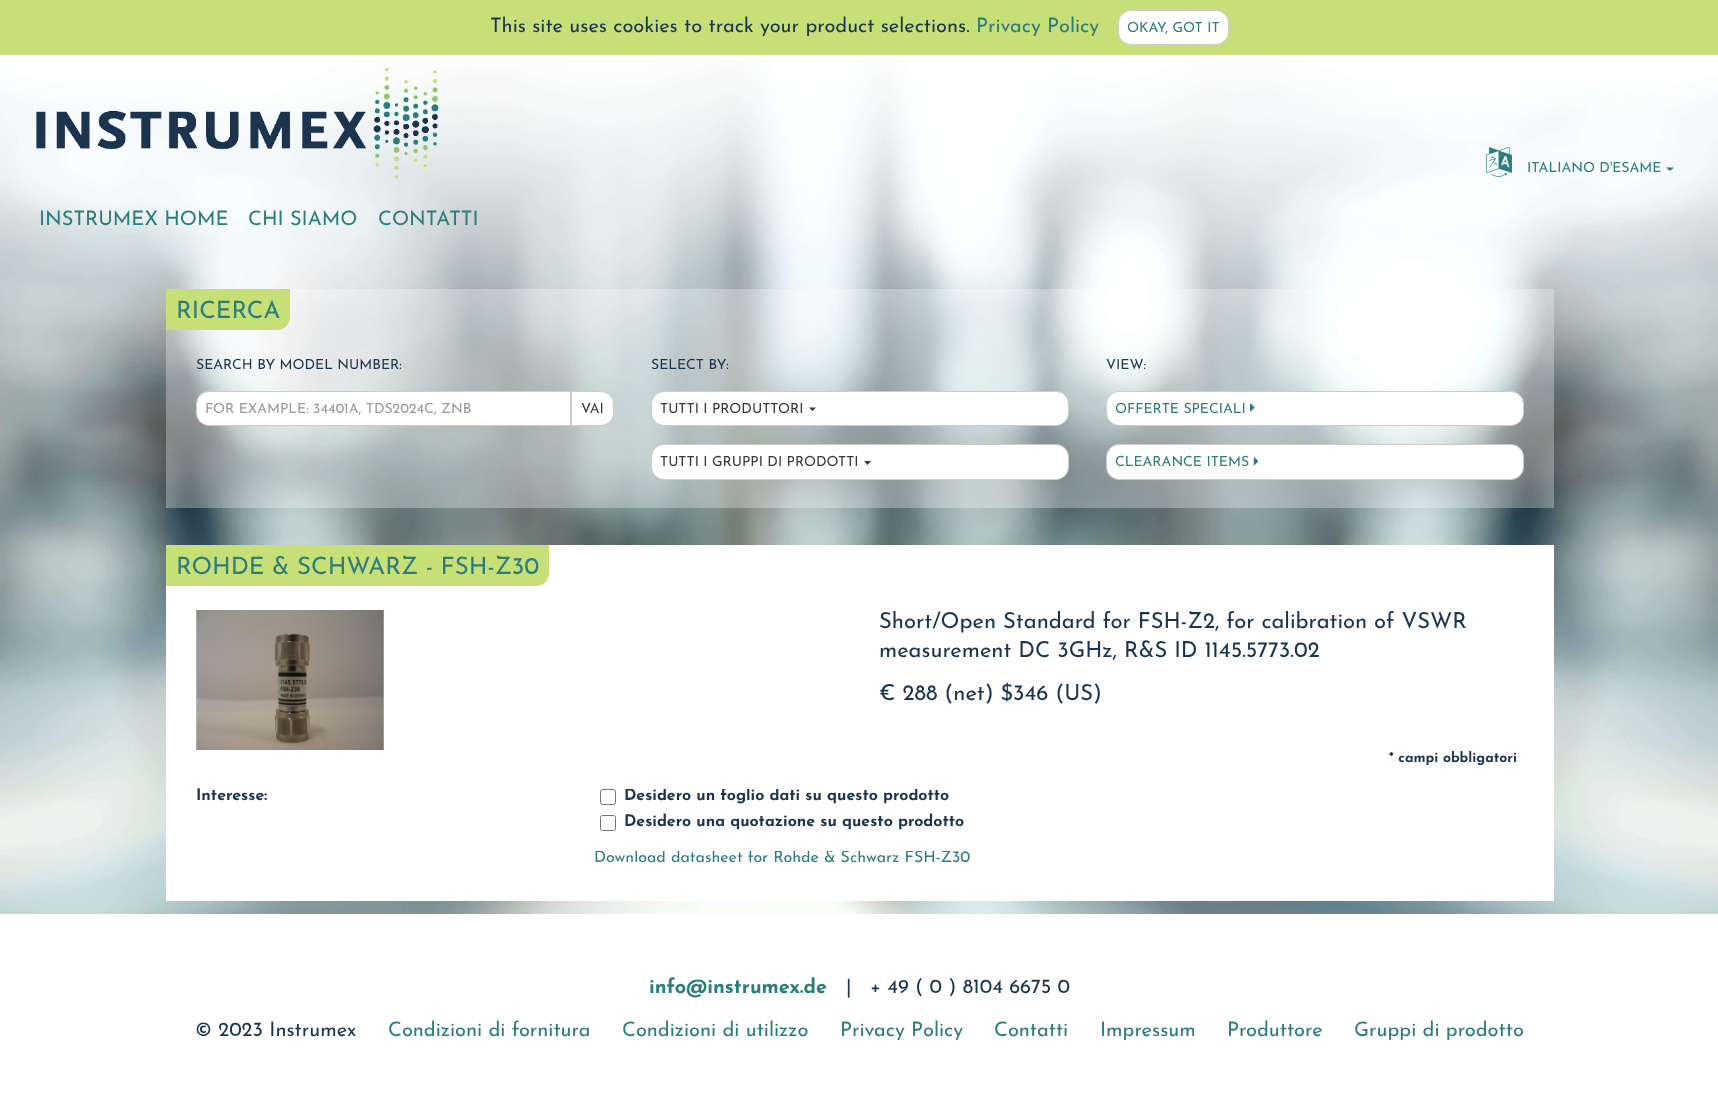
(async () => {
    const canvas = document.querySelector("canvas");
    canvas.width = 1718;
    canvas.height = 1101;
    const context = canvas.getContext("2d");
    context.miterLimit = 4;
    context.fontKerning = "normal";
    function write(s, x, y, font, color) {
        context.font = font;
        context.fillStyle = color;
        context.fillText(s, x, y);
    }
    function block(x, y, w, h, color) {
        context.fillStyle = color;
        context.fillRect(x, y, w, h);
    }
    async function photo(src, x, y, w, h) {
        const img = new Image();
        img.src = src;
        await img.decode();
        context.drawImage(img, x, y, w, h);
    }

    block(0, 0, 1718, 1101, "rgb(255, 255, 255)");
    await photo("media/1.png", 0, 60, 1718, 854);
    block(0, 0, 1718, 55, "rgb(199, 223, 119)");
    write("This site uses cookies to track your product selections.", 490, 32, "20px Josefin Sans", "rgb(28, 53, 78)");
    write("Privacy Policy", 976, 32, "20px Josefin Sans", "rgb(45, 125, 124)");
    context.fillStyle = "rgb(255, 255, 255)";
    context.beginPath();
    context.roundRect(1118.5, 10.5, 110, 34, 12.5);
    context.fill();
    context.strokeStyle = "rgb(204, 204, 204)";
    context.stroke();
    write("OKAY, GOT IT", 1127, 32, "14px Josefin Sans", "rgb(45, 125, 124)");
    await photo("media/2.png", 36, 67, 403, 112);
    await photo("media/3.png", 1486, 146, 26, 31);
    write("ITALIANO D'ESAME", 1527, 172, "14px Josefin Sans", "rgb(45, 125, 124)");
    context.fillStyle = "rgb(40, 127, 126)";
    context.beginPath();
    context.moveTo(1666, 167.5);
    context.lineTo(1674, 167.5);
    context.lineTo(1670, 171);
    context.closePath();
    context.fill();
    write("INSTRUMEX HOME", 39, 225, "20px Josefin Sans", "rgb(45, 125, 124)");
    write("CHI SIAMO", 248, 225, "20px Josefin Sans", "rgb(45, 125, 124)");
    write("CONTATTI", 378, 225, "20px Josefin Sans", "rgb(45, 125, 124)");
    block(166, 289, 1388, 219, "rgba(255, 255, 255, 0.3)");
    context.fillStyle = "rgb(199, 223, 119)";
    context.beginPath();
    context.roundRect(166, 289, 124, 41, [0, 0, 13, 0]);
    context.fill();
    write("RICERCA", 176, 318, "24px Josefin Sans", "rgb(45, 125, 124)");
    write("SEARCH BY MODEL NUMBER:", 196, 369, "14px Josefin Sans", "rgb(28, 53, 78)");
    context.fillStyle = "rgb(255, 255, 255)";
    context.beginPath();
    context.roundRect(196.5, 391.5, 374, 34, [12.5, 0, 0, 12.5]);
    context.fill();
    context.stroke();
    context.save();
    context.beginPath();
    context.rect(205, 403, 358, 13);
    context.clip();
    write("FOR EXAMPLE: 34401A, TDS2024C, ZNB", 205, 413, "14px Josefin Sans", "rgb(153, 153, 153)");
    context.restore();
    context.beginPath();
    context.roundRect(571.5, 391.5, 42, 34, [0, 12.5, 12.5, 0]);
    context.fill();
    context.stroke();
    write("VAI", 581, 413, "14px Josefin Sans", "rgb(55, 58, 60)");
    write("SELECT BY:", 651, 369, "14px Josefin Sans", "rgb(28, 53, 78)");
    context.fillStyle = "rgb(255, 255, 255)";
    context.beginPath();
    context.roundRect(651.5, 391.5, 417, 34, 12.5);
    context.fill();
    context.stroke();
    write("TUTTI I PRODUTTORI", 660, 413, "14px Josefin Sans", "rgb(55, 58, 60)");
    context.beginPath();
    context.moveTo(809, 407.5);
    context.lineTo(816, 407.5);
    context.lineTo(812.5, 411);
    context.closePath();
    context.fill();
    context.fillStyle = "rgb(255, 255, 255)";
    context.beginPath();
    context.roundRect(651.5, 444.5, 417, 35, 12.5);
    context.fill();
    context.stroke();
    write("TUTTI I GRUPPI DI PRODOTTI", 660, 466, "14px Josefin Sans", "rgb(55, 58, 60)");
    context.beginPath();
    context.moveTo(864, 461);
    context.lineTo(871, 461);
    context.lineTo(867.5, 465);
    context.closePath();
    context.fill();
    write("VIEW:", 1106, 369, "14px Josefin Sans", "rgb(28, 53, 78)");
    context.fillStyle = "rgb(255, 255, 255)";
    context.beginPath();
    context.roundRect(1106.5, 391.5, 417, 34, 12.5);
    context.fill();
    context.stroke();
    write("OFFERTE SPECIALI", 1115, 413, "14px Josefin Sans", "rgb(45, 125, 124)");
    await photo("media/4.png", 1250, 403, 5, 9);
    context.fillStyle = "rgb(255, 255, 255)";
    context.beginPath();
    context.roundRect(1106.5, 444.5, 417, 35, 12.5);
    context.fill();
    context.stroke();
    write("CLEARANCE ITEMS", 1115, 466, "14px Josefin Sans", "rgb(45, 125, 124)");
    await photo("media/5.png", 1253, 457, 6, 9);
    block(166, 545, 1388, 356, "rgb(255, 255, 255)");
    context.fillStyle = "rgb(199, 223, 119)";
    context.beginPath();
    context.roundRect(166, 545, 383, 41, [0, 0, 13, 0]);
    context.fill();
    write("ROHDE & SCHWARZ - FSH-Z30", 176, 574, "24px Josefin Sans", "rgb(45, 125, 124)");
    await photo("media/6.png", 196, 610, 188, 140);
    write("Short/Open Standard for FSH-Z2, for calibration of VSWR", 879, 628, "22px Josefin Sans", "rgb(28, 53, 78)");
    write("measurement DC 3GHz, R&S ID 1145.5773.02", 879, 657, "22px Josefin Sans", "rgb(28, 53, 78)");
    write("€ 288 (net) $346 (US)", 879, 700, "22px Josefin Sans", "rgb(28, 53, 78)");
    write("* campi obbligatori", 1389, 762, "bold 14px Josefin Sans", "rgb(28, 53, 78)");
    write("Interesse:", 196, 800, "bold 16px Josefin Sans", "rgb(28, 53, 78)");
    context.beginPath();
    context.roundRect(600.5, 789.5, 15, 15, 2);
    context.strokeStyle = "rgb(118, 118, 118)";
    context.stroke();
    context.save();
    context.beginPath();
    context.rect(594, 789, 930, 56);
    context.clip();
    write("Desidero un foglio dati su questo prodotto", 624, 800, "bold 16px Josefin Sans", "rgb(28, 53, 78)");
    context.restore();
    context.beginPath();
    context.roundRect(600.5, 815.5, 15, 15, 2);
    context.stroke();
    write("Desidero una quotazione su questo prodotto", 624, 826, "bold 16px Josefin Sans", "rgb(28, 53, 78)");
    context.save();
    context.beginPath();
    context.rect(594, 851, 930, 22);
    context.clip();
    write("Download datasheet for Rohde & Schwarz FSH-Z30", 594, 862, "16px Josefin Sans", "rgb(45, 125, 124)");
    context.restore();
    write("info@instrumex.de", 649, 993, "bold 20px Josefin Sans", "rgb(45, 125, 124)");
    write("|", 846, 993, "20px Josefin Sans", "rgb(28, 53, 78)");
    write("+ 49 ( 0 ) 8104 6675 0", 870, 993, "20px Josefin Sans", "rgb(28, 53, 78)");
    write("© 2023 Instrumex", 195, 1036, "20px Josefin Sans", "rgb(28, 53, 78)");
    write("Condizioni di fornitura", 388, 1036, "20px Josefin Sans", "rgb(45, 125, 124)");
    write("Condizioni di utilizzo", 622, 1036, "20px Josefin Sans", "rgb(45, 125, 124)");
    write("Privacy Policy", 840, 1036, "20px Josefin Sans", "rgb(45, 125, 124)");
    write("Contatti", 994, 1036, "20px Josefin Sans", "rgb(45, 125, 124)");
    write("Impressum", 1100, 1036, "20px Josefin Sans", "rgb(45, 125, 124)");
    write("Produttore", 1227, 1036, "20px Josefin Sans", "rgb(45, 125, 124)");
    write("Gruppi di prodotto", 1354, 1036, "20px Josefin Sans", "rgb(45, 125, 124)");
})();
